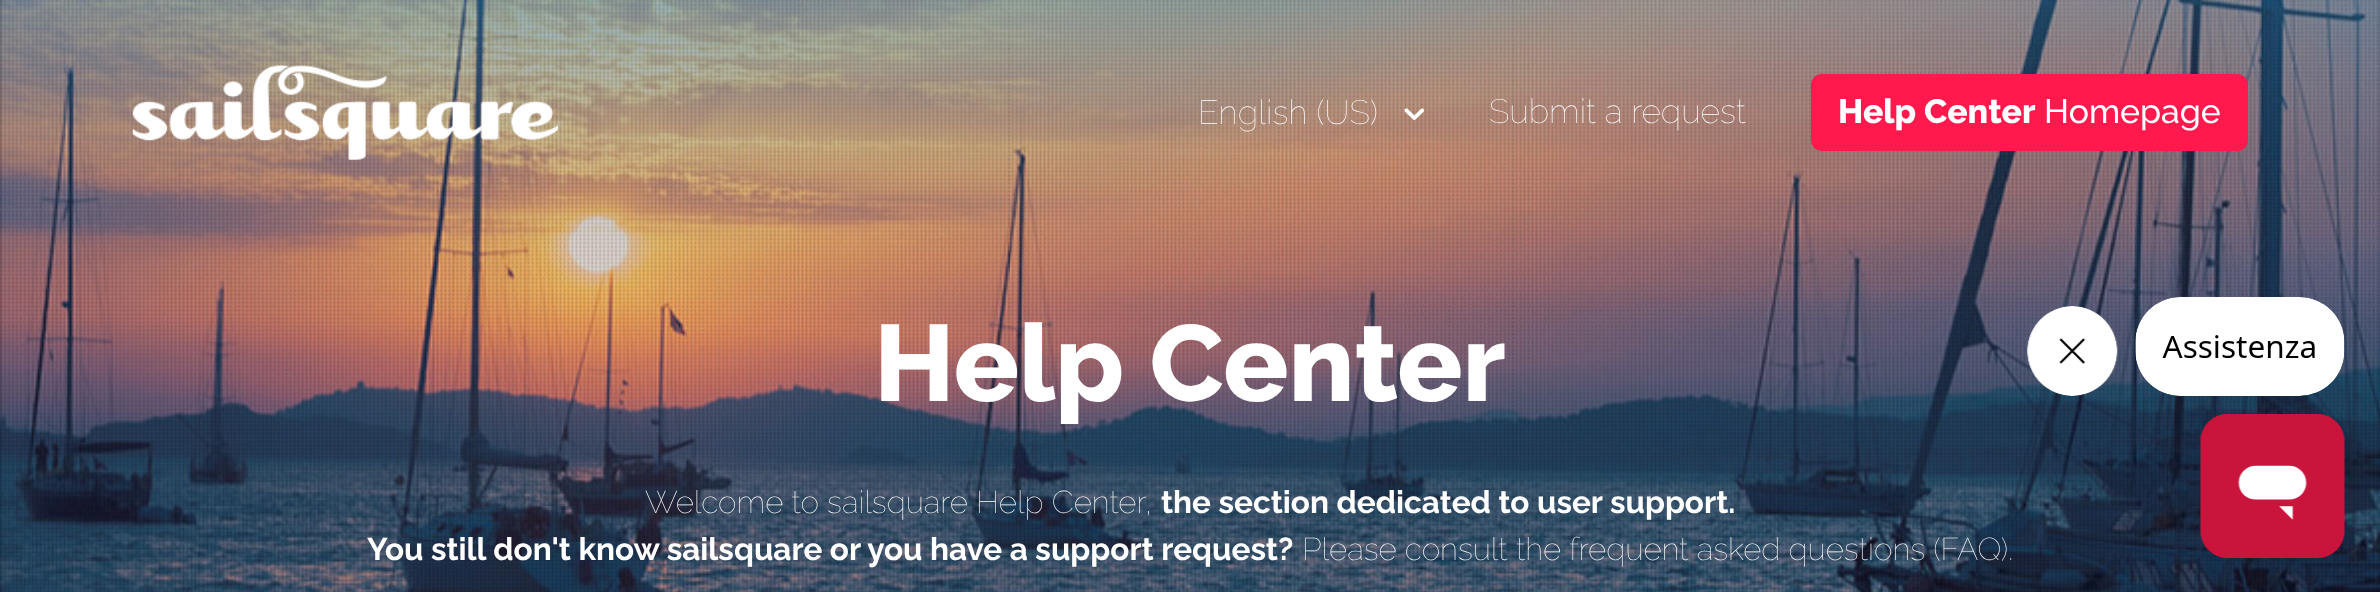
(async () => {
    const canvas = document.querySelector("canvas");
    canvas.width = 2380;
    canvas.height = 592;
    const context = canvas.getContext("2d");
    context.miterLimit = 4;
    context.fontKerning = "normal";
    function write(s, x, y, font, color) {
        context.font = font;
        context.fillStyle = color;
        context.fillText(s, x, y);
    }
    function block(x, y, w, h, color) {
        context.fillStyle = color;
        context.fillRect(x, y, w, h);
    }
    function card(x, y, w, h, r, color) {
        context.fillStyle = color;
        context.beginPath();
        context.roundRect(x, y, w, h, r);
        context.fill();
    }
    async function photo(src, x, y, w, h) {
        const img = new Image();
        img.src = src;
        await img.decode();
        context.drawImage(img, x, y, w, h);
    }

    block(0, 0, 2380, 592, "rgb(255, 255, 255)");
    await photo("media/3.png", 0, 0, 2380, 592);
    await photo("media/1.png", 132, 65, 426, 95);
    write("English (US)", 1198, 124, "100 33.75px Raleway", "rgb(255, 255, 255)");
    await photo("media/2.png", 1404, 108, 21, 12);
    write("Submit a request", 1489, 123, "100 33.75px Raleway", "rgb(255, 255, 255)");
    card(1811, 74, 437, 77, 11, "rgb(255, 25, 76)");
    write("Help Center", 1838, 123, "800 33.75px Raleway", "rgb(255, 255, 255)");
    write("Homepage", 2044, 123, "500 33.75px Raleway", "rgb(255, 255, 255)");
    write("Help Center", 874, 401, "800 108px Raleway", "rgb(255, 255, 255)");
    write("Welcome to sailsquare Help Center,", 645, 513, "100 31.5px Raleway", "rgb(255, 255, 255)");
    write("the section dedicated to user support.", 1161, 513, "bold 31.5px Raleway", "rgb(255, 255, 255)");
    write("You still don't know sailsquare or you have a support request?", 367, 560, "bold 31.5px Raleway", "rgb(255, 255, 255)");
    write("Please consult the frequent asked questions (FAQ).", 1302, 560, "100 31.5px Raleway", "rgb(255, 255, 255)");
    await photo("media/4.png", 2027, 306, 91, 90);
    await photo("media/5.png", 2135, 297, 210, 99);
    await photo("media/6.png", 2200, 414, 145, 144);
})();
